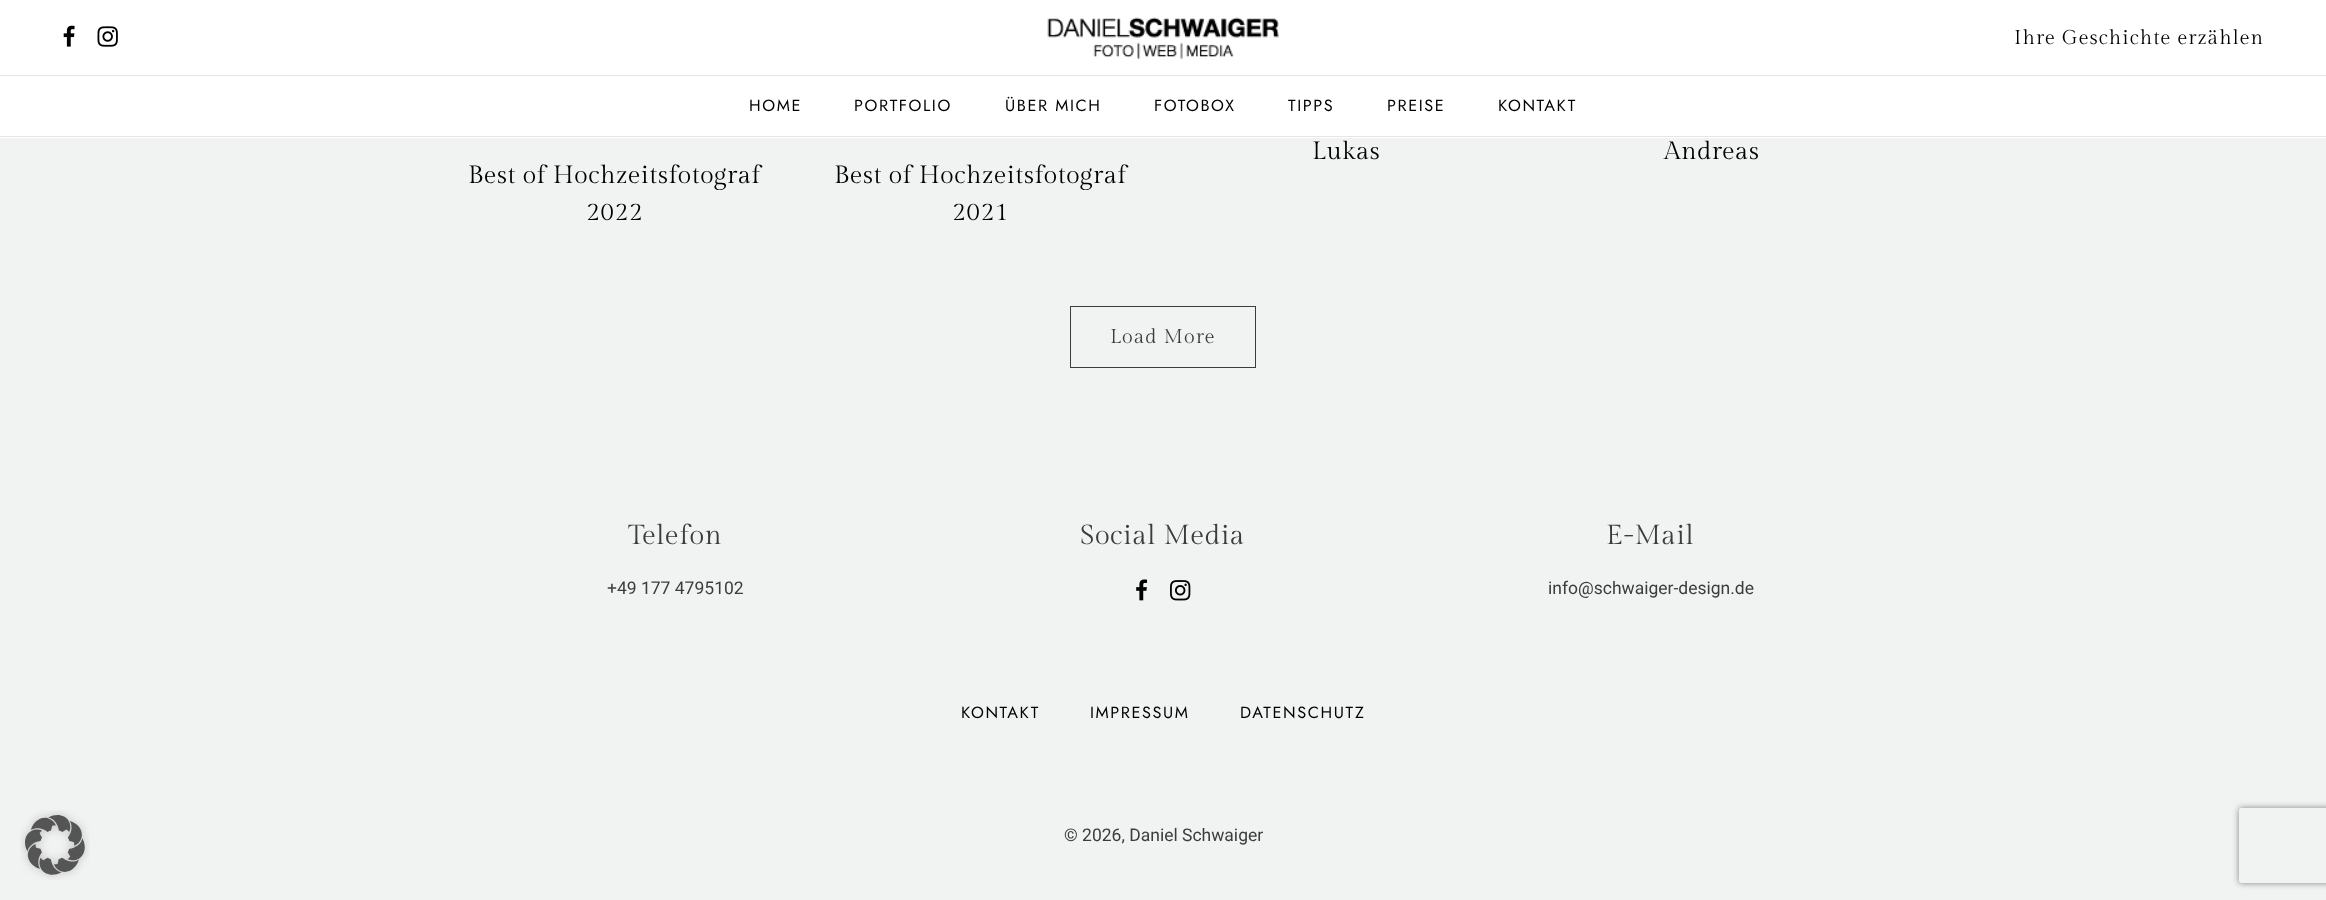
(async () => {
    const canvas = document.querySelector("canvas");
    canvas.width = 2326;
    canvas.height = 900;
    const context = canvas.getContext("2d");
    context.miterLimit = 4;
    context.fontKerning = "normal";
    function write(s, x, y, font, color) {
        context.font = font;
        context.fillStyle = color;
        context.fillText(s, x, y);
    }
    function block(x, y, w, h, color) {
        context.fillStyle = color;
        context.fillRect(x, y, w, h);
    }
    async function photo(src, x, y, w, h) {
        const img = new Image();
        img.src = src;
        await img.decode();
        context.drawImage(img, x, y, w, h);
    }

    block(0, 0, 2326, 900, "rgb(241, 243, 243)");
    await photo("media/1.png", 20, 810, 70, 70);
    block(0, 0, 2326, 138, "rgb(255, 255, 255)");
    block(0, 75, 2326, 1, "rgb(230, 230, 230)");
    await photo("media/2.png", 63, 25, 12, 22);
    await photo("media/3.png", 97, 26, 21, 21);
    await photo("media/4.png", 1047, 17, 232, 42);
    context.letterSpacing = "1px";
    write("Ihre Geschichte erzählen", 2014, 44, "20px Gilda Display", "rgb(0, 0, 0)");
    block(0, 136, 2326, 1, "rgb(230, 230, 230)");
    context.letterSpacing = "1.6px";
    write("HOME", 749, 111, "16.25px Jost", "rgb(0, 0, 0)");
    write("PORTFOLIO", 854, 111, "16.25px Jost", "rgb(0, 0, 0)");
    write("ÜBER MICH", 1005, 111, "16.25px Jost", "rgb(0, 0, 0)");
    write("FOTOBOX", 1154, 111, "16.25px Jost", "rgb(0, 0, 0)");
    write("TIPPS", 1288, 111, "16.25px Jost", "rgb(0, 0, 0)");
    write("PREISE", 1387, 111, "16.25px Jost", "rgb(0, 0, 0)");
    write("KONTAKT", 1498, 111, "16.25px Jost", "rgb(0, 0, 0)");
    context.letterSpacing = "0.5px";
    write("Lukas", 1312, 159, "25px Gilda Display", "rgb(0, 0, 0)");
    write("Andreas", 1664, 159, "25px Gilda Display", "rgb(0, 0, 0)");
    write("Best of Hochzeitsfotograf", 468, 183, "25px Gilda Display", "rgb(0, 0, 0)");
    write("2022", 586, 220, "25px Gilda Display", "rgb(0, 0, 0)");
    write("Best of Hochzeitsfotograf", 834, 183, "25px Gilda Display", "rgb(0, 0, 0)");
    write("2021", 952, 220, "25px Gilda Display", "rgb(0, 0, 0)");
    context.strokeStyle = "rgb(60, 60, 59)";
    context.strokeRect(1070.5, 306.5, 185, 61);
    context.letterSpacing = "1px";
    write("Load More", 1110, 343, "20px Gilda Display", "rgb(60, 60, 59)");
    context.letterSpacing = "0.5px";
    write("Telefon", 628, 544, "27.5px Gilda Display", "rgb(60, 60, 59)");
    context.letterSpacing = "0px";
    write("+49 177 4795102", 607, 594, "17.5px Roboto", "rgb(60, 60, 59)");
    context.letterSpacing = "0.5px";
    write("Social Media", 1080, 544, "27.5px Gilda Display", "rgb(60, 60, 59)");
    await photo("media/5.png", 1136, 579, 12, 22);
    await photo("media/6.png", 1170, 580, 21, 21);
    write("E-Mail", 1606, 544, "27.5px Gilda Display", "rgb(60, 60, 59)");
    context.letterSpacing = "0px";
    write("info@schwaiger-design.de", 1548, 594, "17.5px Roboto", "rgb(60, 60, 59)");
    context.letterSpacing = "1.6px";
    write("KONTAKT", 961, 718, "16.25px Jost", "rgb(0, 0, 0)");
    write("IMPRESSUM", 1090, 718, "16.25px Jost", "rgb(0, 0, 0)");
    write("DATENSCHUTZ", 1240, 718, "16.25px Jost", "rgb(0, 0, 0)");
    context.letterSpacing = "0px";
    write("© 2026, Daniel Schwaiger", 1064, 841, "17.5px Roboto", "rgb(60, 60, 59)");
    context.save();
    context.beginPath();
    context.moveTo(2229, 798);
    context.lineTo(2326, 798);
    context.lineTo(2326, 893);
    context.lineTo(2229, 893);
    context.closePath();
    context.moveTo(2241.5, 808);
    context.lineTo(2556.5, 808);
    context.bezierCurveTo(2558, 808, 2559, 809, 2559, 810.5);
    context.lineTo(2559, 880.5);
    context.bezierCurveTo(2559, 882, 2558, 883, 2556.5, 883);
    context.lineTo(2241.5, 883);
    context.bezierCurveTo(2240, 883, 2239, 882, 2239, 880.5);
    context.lineTo(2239, 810.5);
    context.bezierCurveTo(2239, 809, 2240, 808, 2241.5, 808);
    context.closePath();
    context.clip("evenodd");
    context.fillStyle = "rgb(128, 128, 128)";
    context.filter = "blur(3px)";
    context.beginPath();
    context.roundRect(2239, 808, 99, 75, 2.5);
    context.fill();
    context.filter = "none";
    context.restore();
})();
